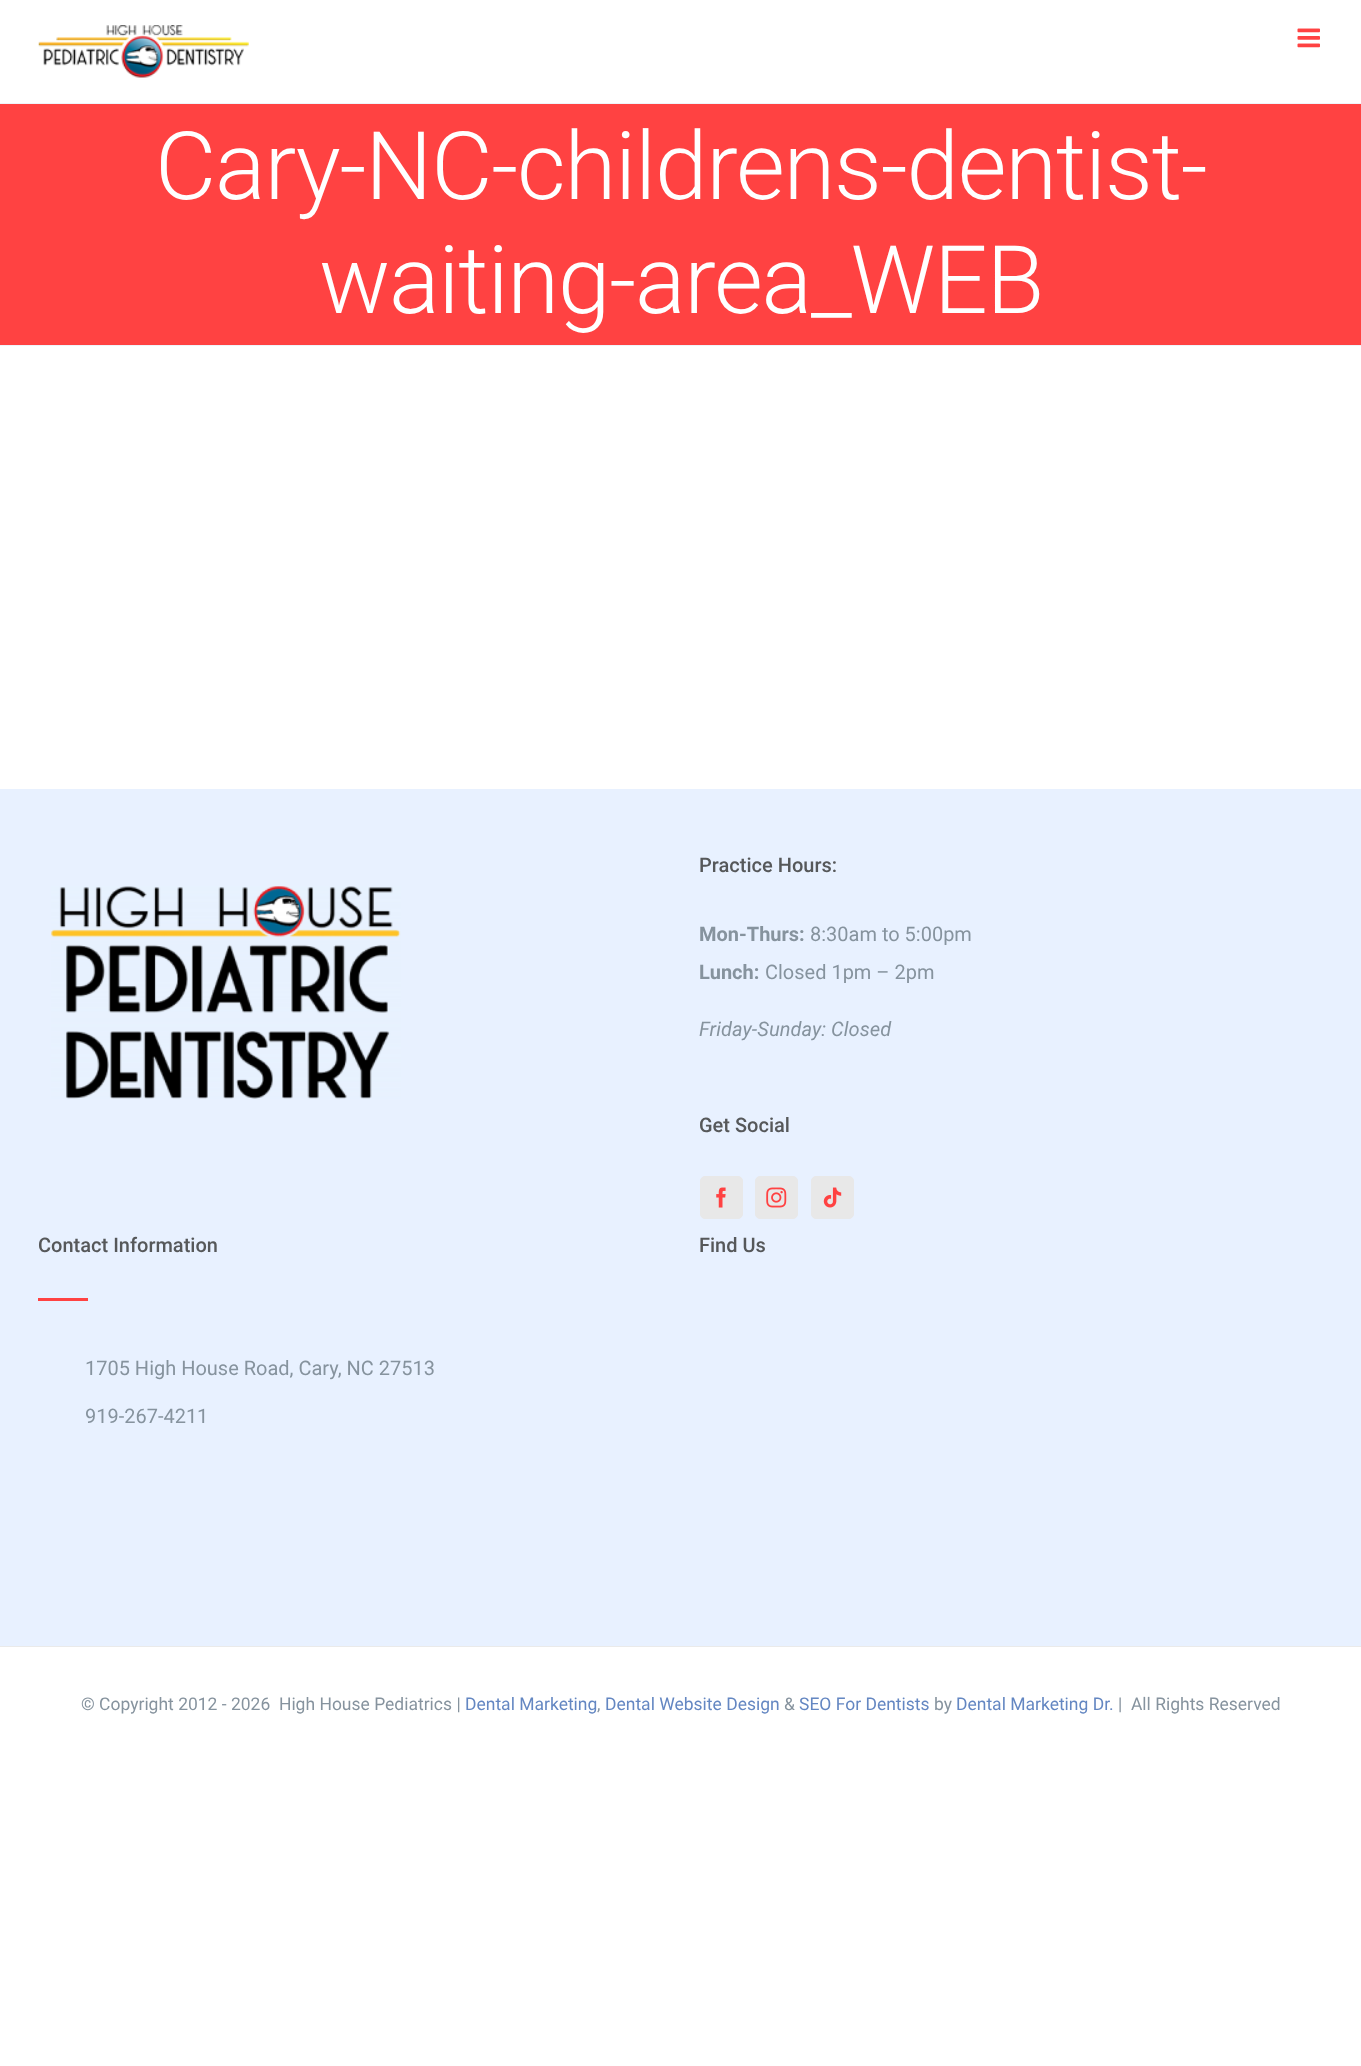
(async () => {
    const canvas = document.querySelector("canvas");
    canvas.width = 1361;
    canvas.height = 2066;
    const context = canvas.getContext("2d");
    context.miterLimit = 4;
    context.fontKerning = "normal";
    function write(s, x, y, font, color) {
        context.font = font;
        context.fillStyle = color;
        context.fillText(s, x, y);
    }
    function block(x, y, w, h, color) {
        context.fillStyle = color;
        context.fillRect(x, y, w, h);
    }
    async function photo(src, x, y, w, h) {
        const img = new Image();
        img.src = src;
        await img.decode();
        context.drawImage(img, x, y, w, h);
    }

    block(0, 0, 1361, 2066, "rgb(255, 255, 255)");
    await photo("media/1.png", 38, 25, 211, 53);
    await photo("media/2.png", 1297, 28, 23, 20);
    block(0, 104, 1361, 241, "rgb(255, 66, 66)");
    block(0, 103, 1361, 1, "rgb(239, 243, 249)");
    block(0, 345, 1361, 1, "rgb(239, 243, 249)");
    context.letterSpacing = "-1.25px";
    write("Cary-NC-childrens-dentist-", 155, 199, "300 94.5px Roboto", "rgb(255, 255, 255)");
    write("waiting-area_WEB", 319, 313, "300 94.5px Roboto", "rgb(255, 255, 255)");
    block(0, 789, 1361, 857, "rgb(232, 241, 255)");
    await photo("media/3.png", 51, 886, 350, 213);
    context.letterSpacing = "0px";
    write("Practice Hours:", 699, 872, "500 20px Roboto", "rgb(86, 88, 90)");
    write("Mon-Thurs:", 699, 941, "bold 20px Roboto", "rgb(134, 147, 158)");
    write("8:30am to 5:00pm", 810, 941, "20px Roboto", "rgb(134, 147, 158)");
    write("Lunch:", 699, 979, "bold 20px Roboto", "rgb(134, 147, 158)");
    write("Closed 1pm – 2pm", 765, 979, "20px Roboto", "rgb(134, 147, 158)");
    write("Friday-Sunday: Closed", 699, 1036, "italic 20px Roboto", "rgb(134, 147, 158)");
    write("Get Social", 699, 1132, "500 20px Roboto", "rgb(86, 88, 90)");
    context.fillStyle = "rgb(232, 232, 232)";
    context.beginPath();
    context.roundRect(700.5, 1176.5, 42, 42, 4.5);
    context.fill();
    context.strokeStyle = "rgb(232, 232, 232)";
    context.stroke();
    await photo("media/4.png", 716, 1187, 10, 21);
    context.beginPath();
    context.roundRect(755.5, 1176.5, 42, 42, 4.5);
    context.fill();
    context.stroke();
    await photo("media/5.png", 766, 1187, 21, 21);
    context.beginPath();
    context.roundRect(811.5, 1176.5, 42, 42, 4.5);
    context.fill();
    context.stroke();
    await photo("media/6.png", 823, 1187, 19, 21);
    write("Contact Information", 38, 1252, "500 20px Roboto", "rgb(86, 88, 90)");
    block(38, 1298, 50, 3, "rgb(255, 66, 66)");
    write("1705 High House Road, Cary, NC 27513", 85, 1375, "20px Roboto", "rgb(134, 147, 158)");
    write("919-267-4211", 85, 1423, "20px Roboto", "rgb(134, 147, 158)");
    write("Find Us", 699, 1252, "500 20px Roboto", "rgb(86, 88, 90)");
    block(0, 1646, 1361, 1, "rgb(234, 234, 234)");
    write("© Copyright 2012 - 2026  High House Pediatrics |", 81, 1710, "17.5px Roboto", "rgb(134, 147, 158)");
    write("Dental Marketing", 465, 1710, "17.5px Roboto", "rgb(100, 135, 194)");
    write(",", 597, 1710, "17.5px Roboto", "rgb(134, 147, 158)");
    write("Dental Website Design", 605, 1710, "17.5px Roboto", "rgb(100, 135, 194)");
    write("&", 784, 1710, "17.5px Roboto", "rgb(134, 147, 158)");
    write("SEO For Dentists", 799, 1710, "17.5px Roboto", "rgb(100, 135, 194)");
    write("by", 934, 1710, "17.5px Roboto", "rgb(134, 147, 158)");
    write("Dental Marketing Dr.", 956, 1710, "17.5px Roboto", "rgb(100, 135, 194)");
    write("|  All Rights Reserved", 1118, 1710, "17.5px Roboto", "rgb(134, 147, 158)");
})();
